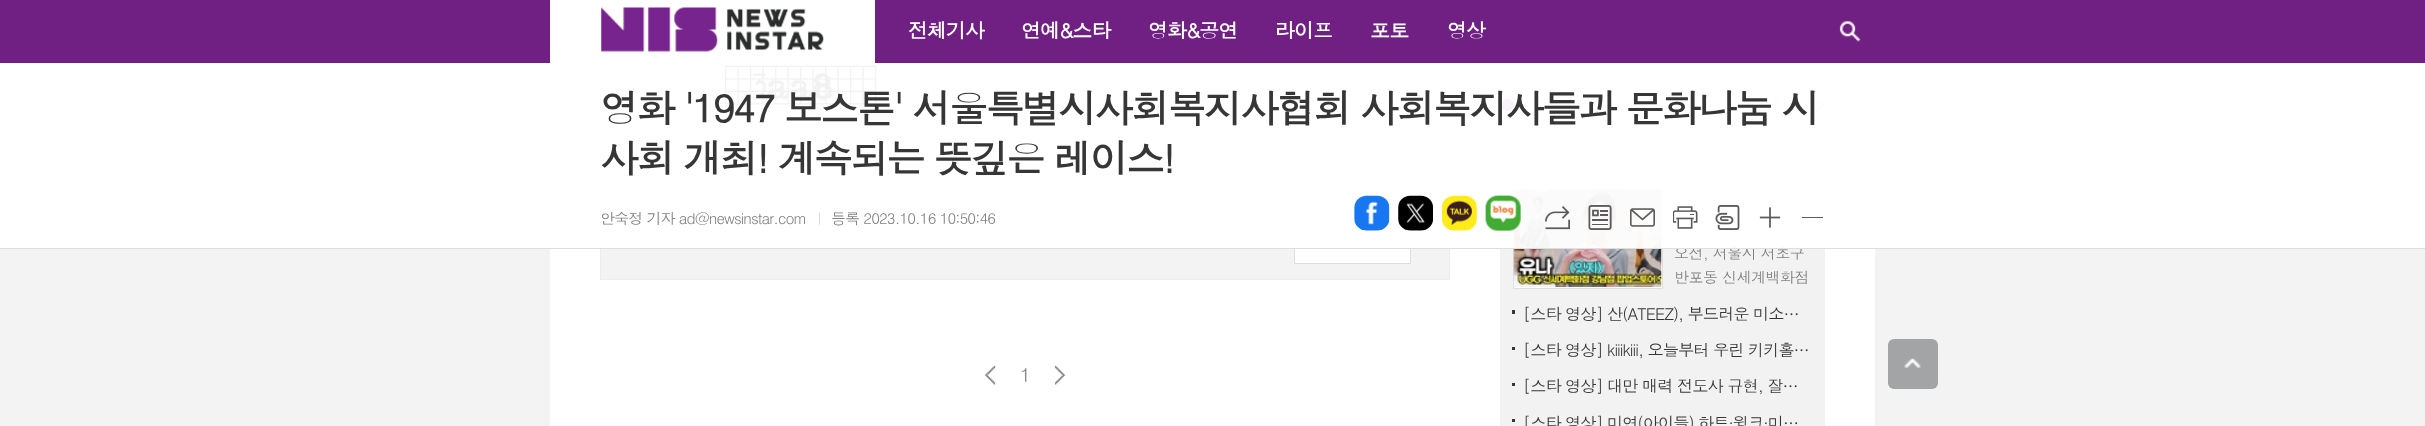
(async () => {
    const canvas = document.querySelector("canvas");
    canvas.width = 2425;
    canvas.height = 426;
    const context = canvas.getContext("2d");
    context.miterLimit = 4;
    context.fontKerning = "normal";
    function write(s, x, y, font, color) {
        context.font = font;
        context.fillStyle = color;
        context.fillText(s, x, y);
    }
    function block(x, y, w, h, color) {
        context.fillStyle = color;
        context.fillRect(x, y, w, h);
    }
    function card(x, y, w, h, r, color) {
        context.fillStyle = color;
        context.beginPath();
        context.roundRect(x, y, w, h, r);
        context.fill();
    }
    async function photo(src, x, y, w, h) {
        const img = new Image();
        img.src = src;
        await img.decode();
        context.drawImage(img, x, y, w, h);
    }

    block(0, 0, 2425, 426, "rgb(243, 243, 243)");
    block(550, 63, 1325, 363, "rgb(255, 255, 255)");
    block(601, 63, 848, 216, "rgb(243, 243, 243)");
    context.strokeStyle = "rgb(237, 237, 237)";
    context.strokeRect(600.5, -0.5, 849, 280);
    block(0, 0, 2425, 63, "rgb(112, 32, 130)");
    block(550, 0, 325, 63, "rgb(255, 255, 255)");
    await photo("media/1.png", 601, 7, 223, 45);
    context.letterSpacing = "-1px";
    write("전체기사", 908, 38, "bold 20px Dotum", "rgb(255, 255, 255)");
    write("연예&스타", 1021, 38, "bold 20px Dotum", "rgb(255, 255, 255)");
    write("영화&공연", 1148, 38, "bold 20px Dotum", "rgb(255, 255, 255)");
    write("라이프", 1275, 38, "bold 20px Dotum", "rgb(255, 255, 255)");
    write("포토", 1370, 38, "bold 20px Dotum", "rgb(255, 255, 255)");
    write("영상", 1447, 38, "bold 20px Dotum", "rgb(255, 255, 255)");
    await photo("media/2.png", 1839, 21, 22, 21);
    await photo("media/14.png", 725, 65, 152, 40);
    context.beginPath();
    context.rect(884.5, 66.5, 269, 38);
    context.fill();
    context.strokeStyle = "rgb(222, 222, 222)";
    context.stroke();
    block(639, 118, 770, 91, "rgb(255, 255, 255)");
    context.beginPath();
    context.rect(1294.5, 224.5, 116, 39);
    context.fill();
    context.stroke();
    block(1506, 104, 17, 3, "rgb(112, 32, 130)");
    card(1501, 99, 13, 12, 6, "rgb(112, 32, 130)");
    await photo("media/17.png", 1775, 99, 49, 14);
    block(1500, 139, 325, 287, "rgb(242, 242, 242)");
    context.fillStyle = "rgb(255, 255, 255)";
    context.beginPath();
    context.rect(1513.5, 189.5, 149, 99);
    context.fill();
    context.stroke();
    await photo("media/18.png", 1513, 189, 149, 98);
    context.letterSpacing = "-0.5px";
    write("오전, 서울시 서초구", 1674, 259, "15px Dotum", "rgb(128, 128, 128)");
    block(0, 63, 2425, 185, "rgba(255, 255, 255, 0.95)");
    block(0, 248, 2425, 1, "rgb(222, 222, 222)");
    context.letterSpacing = "-2.35px";
    write("영화 '1947 보스톤' 서울특별시사회복지사협회 사회복지사들과 문화나눔 시", 600, 123, "bold 38.75px Dotum", "rgb(54, 54, 54)");
    write("사회 개최! 계속되는 뜻깊은 레이스!", 600, 173, "bold 38.75px Dotum", "rgb(54, 54, 54)");
    context.letterSpacing = "-0.9px";
    write("안숙정 기자 ad@newsinstar.com", 600, 224, "15px Dotum", "rgb(128, 128, 128)");
    await photo("media/3.png", 819, 212, 1, 13);
    write("등록 2023.10.16 10:50:46", 831, 224, "15px Dotum", "rgb(128, 128, 128)");
    await photo("media/4.png", 1354, 195, 36, 36);
    await photo("media/5.png", 1398, 195, 35, 36);
    await photo("media/6.png", 1442, 195, 35, 36);
    await photo("media/7.png", 1485, 195, 36, 36);
    await photo("media/8.png", 1545, 206, 25, 24);
    await photo("media/9.png", 1588, 205, 24, 25);
    await photo("media/10.png", 1630, 208, 25, 19);
    await photo("media/11.png", 1673, 206, 25, 23);
    await photo("media/12.png", 1715, 205, 25, 25);
    await photo("media/13.png", 1759, 207, 22, 21);
    block(1802, 217, 21, 1, "rgb(91, 91, 91)");
    await photo("media/15.png", 984, 365, 12, 20);
    context.letterSpacing = "-1px";
    write("1", 1020, 382, "19px Dotum", "rgb(128, 128, 128)");
    await photo("media/16.png", 1054, 365, 12, 20);
    context.letterSpacing = "-0.5px";
    write("반포동 신세계백화점", 1674, 283, "15px Dotum", "rgb(128, 128, 128)");
    block(1512, 310, 3, 4, "rgb(54, 54, 54)");
    context.letterSpacing = "-1px";
    write("[스타 영상] 산(ATEEZ), 부드러운 미소…", 1523, 320, "16.25px Dotum", "rgb(54, 54, 54)");
    block(1512, 347, 3, 3, "rgb(54, 54, 54)");
    write("[스타 영상] kiiikiii, 오늘부터 우린 키키홀…", 1523, 356, "16.25px Dotum", "rgb(54, 54, 54)");
    block(1512, 383, 3, 3, "rgb(54, 54, 54)");
    write("[스타 영상] 대만 매력 전도사 규현, 잘…", 1523, 392, "16.25px Dotum", "rgb(54, 54, 54)");
    block(1512, 419, 3, 3, "rgb(54, 54, 54)");
    write("[스타 영상] 미연(아이들) 하트·윙크·미…", 1523, 429, "16.25px Dotum", "rgb(54, 54, 54)");
    card(1888, 339, 50, 50, 6, "rgb(163, 164, 165)");
    await photo("media/19.png", 1904, 358, 17, 10);
})();
